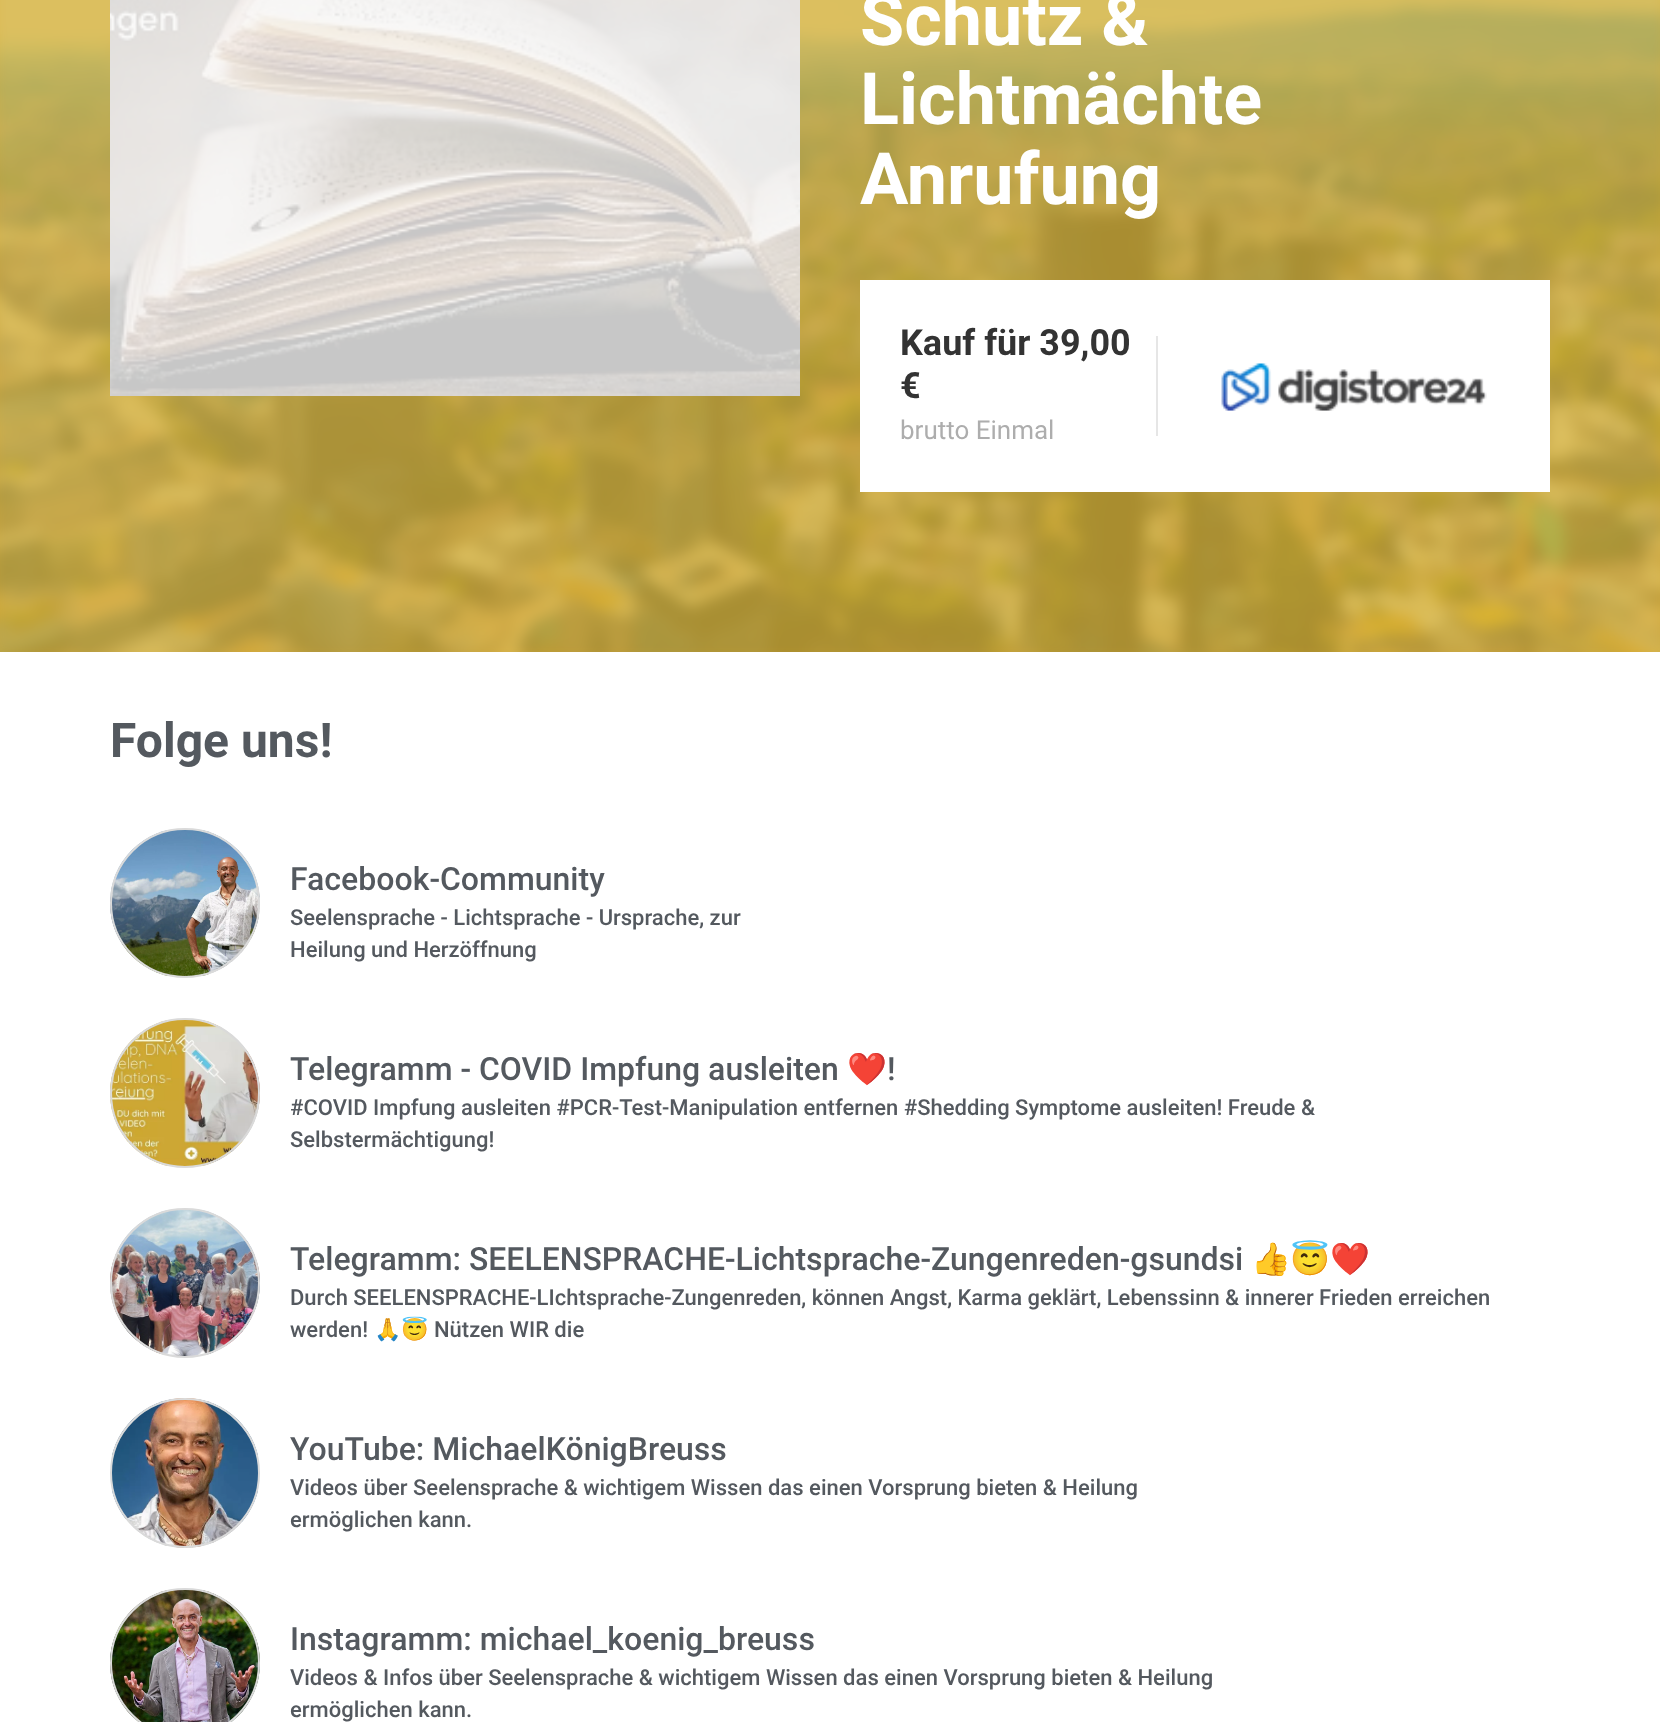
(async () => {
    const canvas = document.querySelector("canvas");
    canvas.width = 1660;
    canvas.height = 1722;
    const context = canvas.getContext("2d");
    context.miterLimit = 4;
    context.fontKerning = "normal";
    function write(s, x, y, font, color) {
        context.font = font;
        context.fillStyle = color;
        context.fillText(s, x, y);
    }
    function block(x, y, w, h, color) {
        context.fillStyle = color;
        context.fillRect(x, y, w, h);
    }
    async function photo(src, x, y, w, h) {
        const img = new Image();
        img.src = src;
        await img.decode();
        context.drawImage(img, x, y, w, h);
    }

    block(0, 0, 1660, 1722, "rgb(255, 255, 255)");
    block(0, 0, 1660, 652, "rgb(212, 175, 55)");
    await photo("media/1.png", 0, 0, 1660, 652);
    block(110, 0, 690, 396, "rgb(249, 249, 249)");
    await photo("media/2.png", 110, 0, 690, 396);
    write("Schutz &", 860, 45, "bold 72px Roboto", "rgb(255, 255, 255)");
    write("Lichtmächte", 860, 124, "bold 72px Roboto", "rgb(255, 255, 255)");
    write("Anrufung", 860, 204, "bold 72px Roboto", "rgb(255, 255, 255)");
    block(860, 280, 690, 212, "rgb(255, 255, 255)");
    write("Kauf für 39,00", 900, 355, "bold 36px Roboto", "rgb(51, 51, 51)");
    write("€", 900, 398, "bold 36px Roboto", "rgb(51, 51, 51)");
    write("brutto Einmal", 900, 439, "26px Roboto", "rgb(173, 173, 173)");
    await photo("media/3.png", 1221, 363, 266, 48);
    block(1156, 336, 2, 100, "rgb(230, 230, 230)");
    write("Folge uns!", 110, 757, "bold 48px Roboto", "rgb(84, 89, 95)");
    await photo("media/4.png", 110, 830, 150, 146);
    context.beginPath();
    context.arc(185, 903, 74, 0, Math.PI * 2);
    context.strokeStyle = "rgb(218, 218, 218)";
    context.lineWidth = 2;
    context.stroke();
    write("Facebook-Community", 290, 890, "500 32px Roboto", "rgb(84, 89, 95)");
    write("Seelensprache - Lichtsprache - Ursprache, zur", 290, 925, "500 22px Roboto", "rgb(84, 89, 95)");
    write("Heilung und Herzöffnung", 290, 957, "500 22px Roboto", "rgb(84, 89, 95)");
    await photo("media/5.png", 110, 1020, 150, 146);
    context.beginPath();
    context.arc(185, 1093, 74, 0, Math.PI * 2);
    context.stroke();
    write("Telegramm - COVID Impfung ausleiten", 290, 1080, "500 32px Roboto", "rgb(84, 89, 95)");
    write("❤️", 847, 1080, "32px Noto Color Emoji", "rgb(84, 89, 95)");
    write("!", 887, 1080, "500 32px Roboto", "rgb(84, 89, 95)");
    write("#COVID Impfung ausleiten #PCR-Test-Manipulation entfernen #Shedding Symptome ausleiten! Freude &", 290, 1115, "500 22px Roboto", "rgb(84, 89, 95)");
    write("Selbstermächtigung!", 290, 1147, "500 22px Roboto", "rgb(84, 89, 95)");
    await photo("media/6.png", 110, 1210, 150, 146);
    context.beginPath();
    context.arc(185, 1283, 74, 0, Math.PI * 2);
    context.stroke();
    write("Telegramm: SEELENSPRACHE-Lichtsprache-Zungenreden-gsundsi", 290, 1270, "500 32px Roboto", "rgb(84, 89, 95)");
    write("👍😇❤️", 1251, 1270, "32px Noto Color Emoji", "rgb(84, 89, 95)");
    write("Durch SEELENSPRACHE-LIchtsprache-Zungenreden, können Angst, Karma geklärt, Lebenssinn & innerer Frieden erreichen", 290, 1305, "500 22px Roboto", "rgb(84, 89, 95)");
    write("werden!", 290, 1337, "500 22px Roboto", "rgb(84, 89, 95)");
    write("🙏😇", 374, 1337, "22px Noto Color Emoji", "rgb(84, 89, 95)");
    write("Nützen WIR die", 434, 1337, "500 22px Roboto", "rgb(84, 89, 95)");
    await photo("media/7.png", 112, 1398, 146, 150);
    context.beginPath();
    context.arc(185, 1473, 74, 0, Math.PI * 2);
    context.stroke();
    write("YouTube: MichaelKönigBreuss", 290, 1460, "500 32px Roboto", "rgb(84, 89, 95)");
    write("Videos über Seelensprache & wichtigem Wissen das einen Vorsprung bieten & Heilung", 290, 1495, "500 22px Roboto", "rgb(84, 89, 95)");
    write("ermöglichen kann.", 290, 1527, "500 22px Roboto", "rgb(84, 89, 95)");
    await photo("media/8.png", 110, 1590, 150, 132);
    context.beginPath();
    context.arc(185, 1663, 74, 0, Math.PI * 2);
    context.stroke();
    write("Instagramm: michael_koenig_breuss", 290, 1650, "500 32px Roboto", "rgb(84, 89, 95)");
    write("Videos & Infos über Seelensprache & wichtigem Wissen das einen Vorsprung bieten & Heilung", 290, 1685, "500 22px Roboto", "rgb(84, 89, 95)");
    write("ermöglichen kann.", 290, 1717, "500 22px Roboto", "rgb(84, 89, 95)");
})();
